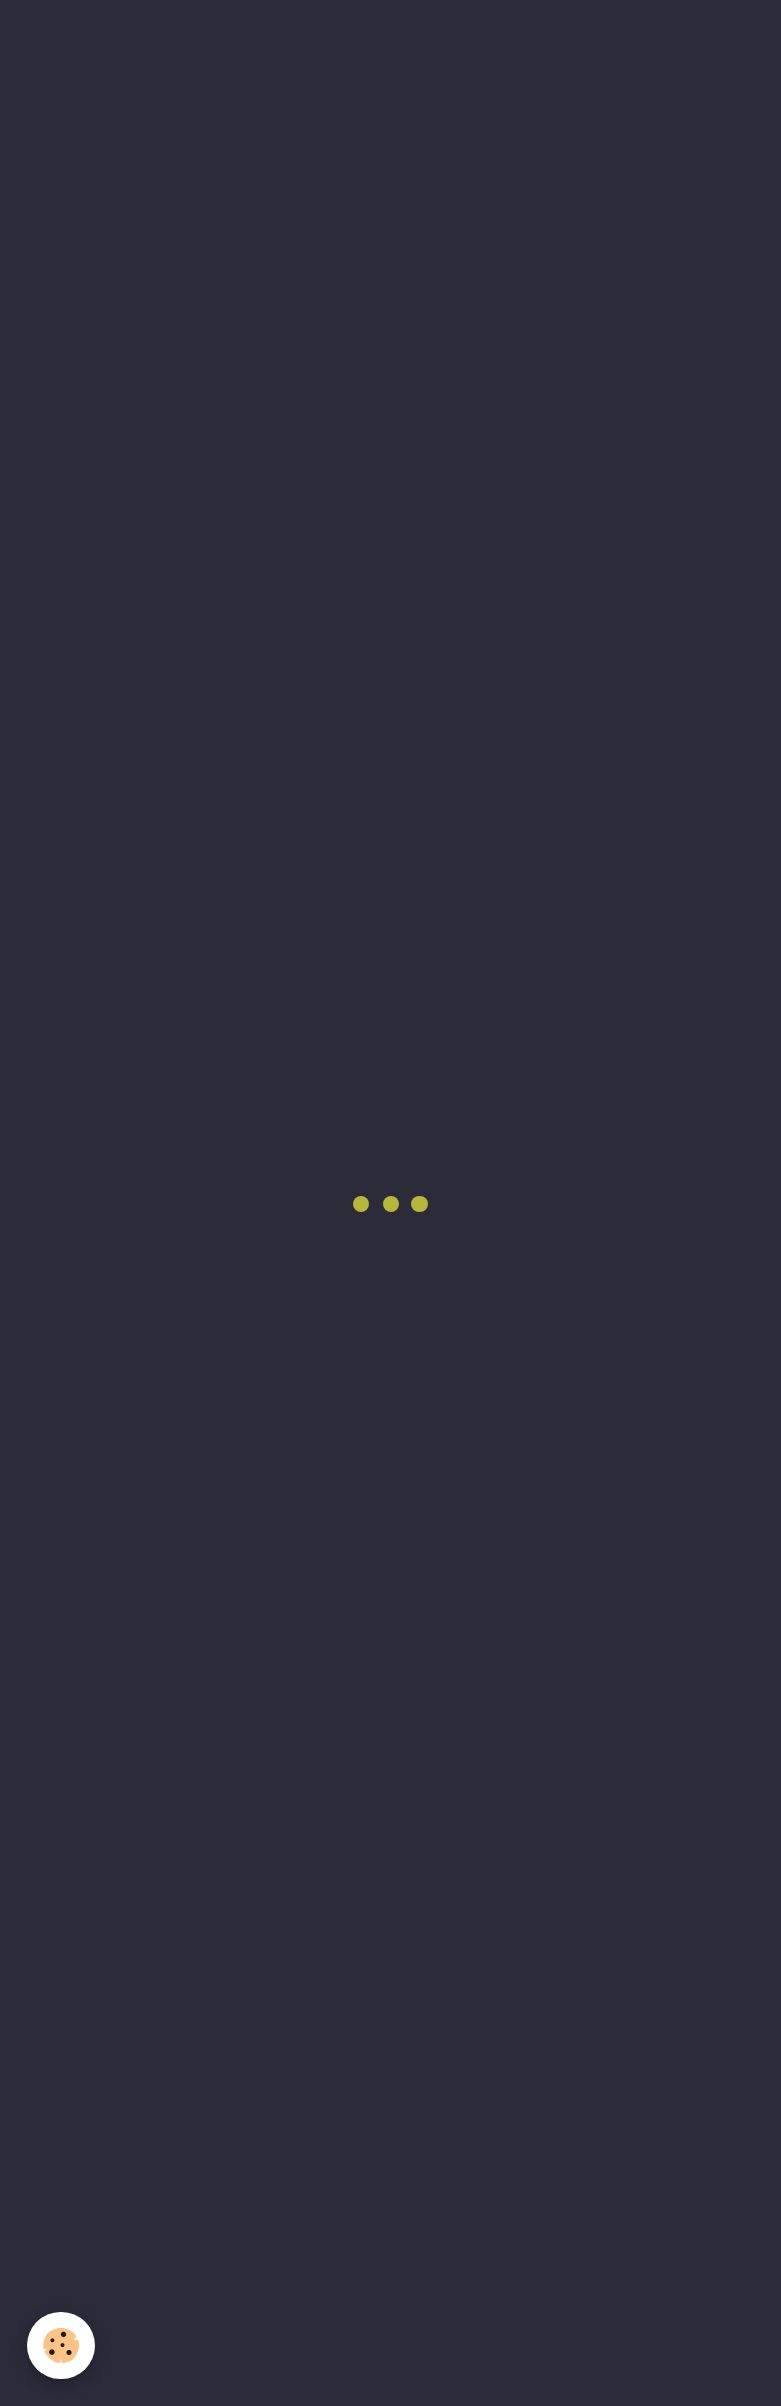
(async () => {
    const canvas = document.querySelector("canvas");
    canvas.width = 781;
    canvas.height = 2406;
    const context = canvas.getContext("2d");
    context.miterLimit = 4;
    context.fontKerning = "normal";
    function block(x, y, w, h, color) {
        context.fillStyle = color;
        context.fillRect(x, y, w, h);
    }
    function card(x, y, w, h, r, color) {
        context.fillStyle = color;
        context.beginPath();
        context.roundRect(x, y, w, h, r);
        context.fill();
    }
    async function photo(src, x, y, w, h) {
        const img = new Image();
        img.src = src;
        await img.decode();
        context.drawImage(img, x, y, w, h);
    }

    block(0, 0, 781, 2406, "rgb(43, 43, 58)");
    context.fillStyle = "rgb(182, 183, 56)";
    context.beginPath();
    context.arc(361, 1204, 8, 0, Math.PI * 2);
    context.fill();
    context.beginPath();
    context.arc(391, 1204, 8, 0, Math.PI * 2);
    context.fill();
    card(411, 1196, 17, 16, 8, "rgb(182, 183, 56)");
    context.fillStyle = "rgba(0, 0, 0, 0.24)";
    context.filter = "blur(7.5px)";
    context.beginPath();
    context.roundRect(27, 2316, 68, 68, 34);
    context.fill();
    context.filter = "none";
    card(27, 2312, 68, 67, 33.5, "rgb(255, 255, 255)");
    await photo("media/1.png", 43, 2327, 37, 36);
})();
